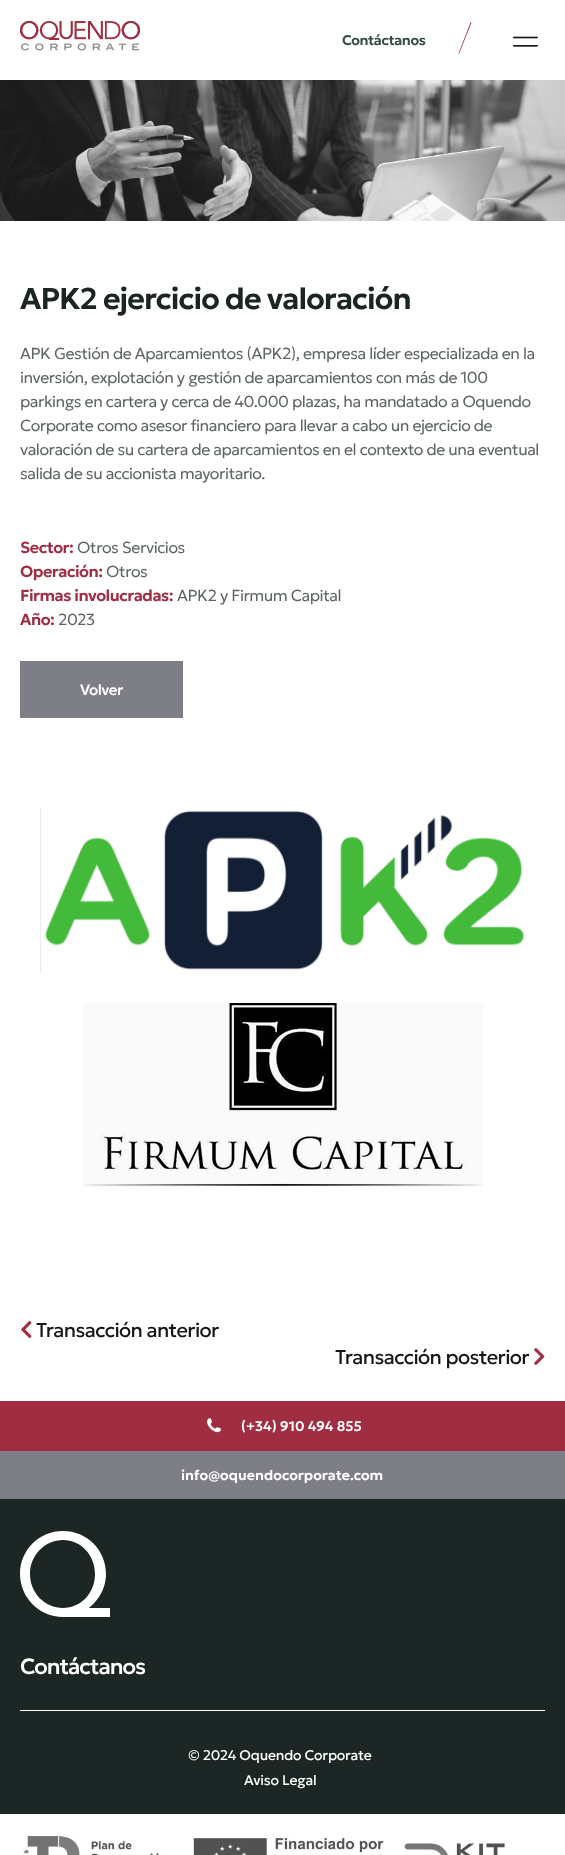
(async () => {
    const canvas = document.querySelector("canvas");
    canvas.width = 565;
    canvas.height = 1855;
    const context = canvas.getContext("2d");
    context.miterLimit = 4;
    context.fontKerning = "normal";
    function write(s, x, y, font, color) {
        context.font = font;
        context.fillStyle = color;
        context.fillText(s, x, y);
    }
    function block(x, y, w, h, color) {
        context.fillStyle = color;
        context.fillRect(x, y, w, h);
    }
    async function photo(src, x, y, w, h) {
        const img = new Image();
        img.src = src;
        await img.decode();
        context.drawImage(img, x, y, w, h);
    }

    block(0, 0, 565, 1855, "rgb(255, 255, 255)");
    await photo("media/1.png", 20, 21, 120, 30);
    context.letterSpacing = "-0.4px";
    write("Contáctanos", 342, 45, "600 14px Geologica", "rgb(55, 75, 71)");
    context.fillStyle = "rgb(160, 45, 65)";
    context.beginPath();
    context.moveTo(471, 22);
    context.lineTo(471.5, 22.5);
    context.lineTo(459, 54);
    context.lineTo(458.5, 53.5);
    context.lineTo(470.5, 22.5);
    context.closePath();
    context.fill();
    await photo("media/2.png", 513, 36, 25, 11);
    await photo("media/3.png", 0, 80, 565, 141);
    context.letterSpacing = "-0.9px";
    write("APK2 ejercicio de valoración", 20, 309, "600 30px Geologica", "rgb(27, 37, 35)");
    context.letterSpacing = "-0.48px";
    write("APK Gestión de Aparcamientos (APK2), empresa líder especializada en la", 20, 359, "300 16px Geologica", "rgb(95, 101, 103)");
    write("inversión, explotación y gestión de aparcamientos con más de 100", 20, 383, "300 16px Geologica", "rgb(95, 101, 103)");
    write("parkings en cartera y cerca de 40.000 plazas, ha mandatado a Oquendo", 20, 407, "300 16px Geologica", "rgb(95, 101, 103)");
    write("Corporate como asesor financiero para llevar a cabo un ejercicio de", 20, 431, "300 16px Geologica", "rgb(95, 101, 103)");
    write("valoración de su cartera de aparcamientos en el contexto de una eventual", 20, 455, "300 16px Geologica", "rgb(95, 101, 103)");
    write("salida de su accionista mayoritario.", 20, 479, "300 16px Geologica", "rgb(95, 101, 103)");
    write("Sector:", 20, 553, "600 16px Geologica", "rgb(160, 45, 65)");
    write("Otros Servicios", 77, 553, "300 16px Geologica", "rgb(95, 101, 103)");
    write("Operación:", 20, 577, "600 16px Geologica", "rgb(160, 45, 65)");
    write("Otros", 106, 577, "300 16px Geologica", "rgb(95, 101, 103)");
    write("Firmas involucradas:", 20, 601, "600 16px Geologica", "rgb(160, 45, 65)");
    write("APK2 y Firmum Capital", 177, 601, "300 16px Geologica", "rgb(95, 101, 103)");
    write("Año:", 20, 625, "600 16px Geologica", "rgb(160, 45, 65)");
    write("2023", 58, 625, "300 16px Geologica", "rgb(95, 101, 103)");
    block(20, 661, 163, 57, "rgb(126, 126, 135)");
    context.letterSpacing = "-0.5px";
    write("Volver", 80, 695, "500 15px Geologica", "rgb(255, 255, 255)");
    await photo("media/4.png", 40, 808, 485, 165);
    await photo("media/5.png", 83, 1003, 400, 184);
    await photo("media/6.png", 21, 1321, 11, 17);
    context.letterSpacing = "-0.6px";
    write("Transacción anterior", 36, 1337, "20px Geologica", "rgb(22, 22, 22)");
    write("Transacción posterior", 335, 1364, "20px Geologica", "rgb(22, 22, 22)");
    await photo("media/7.png", 534, 1348, 11, 17);
    block(0, 1401, 565, 50, "rgb(160, 45, 65)");
    await photo("media/8.png", 207, 1418, 14, 15);
    context.letterSpacing = "0px";
    write("(+34) 910 494 855", 241, 1431, "600 14px Geologica", "rgb(255, 255, 255)");
    block(0, 1451, 565, 48, "rgb(126, 126, 135)");
    write("info@oquendocorporate.com", 181, 1480, "600 14px Geologica", "rgb(255, 255, 255)");
    block(0, 1499, 565, 315, "rgb(28, 38, 36)");
    context.fillStyle = "rgb(255, 255, 255)";
    context.beginPath();
    context.moveTo(20, 1574);
    context.bezierCurveTo(20, 1550, 39, 1531, 63, 1531);
    context.bezierCurveTo(87, 1531, 106, 1550, 106, 1574);
    context.bezierCurveTo(106, 1597, 86, 1617, 63, 1617);
    context.bezierCurveTo(39, 1617, 20, 1597, 20, 1574);
    context.closePath();
    context.moveTo(30, 1574);
    context.bezierCurveTo(30, 1593, 45, 1608, 63, 1608);
    context.bezierCurveTo(81, 1608, 95, 1593, 95, 1574);
    context.bezierCurveTo(95, 1555, 81, 1540, 63, 1540);
    context.bezierCurveTo(45, 1540, 30, 1555, 30, 1574);
    context.closePath();
    context.fill();
    block(63, 1608, 47, 9, "rgb(255, 255, 255)");
    context.letterSpacing = "-1px";
    write("Contáctanos", 20, 1674, "500 22px Geologica", "rgb(255, 255, 255)");
    block(20, 1710, 525, 1, "rgb(255, 255, 255)");
    context.letterSpacing = "-0.2px";
    write("© 2024 Oquendo Corporate", 188, 1760, "14px Geologica", "rgb(255, 255, 255)");
    write("Aviso Legal", 244, 1785, "14px Geologica", "rgb(255, 255, 255)");
    await photo("media/9.png", 23, 1833, 484, 22);
})();
